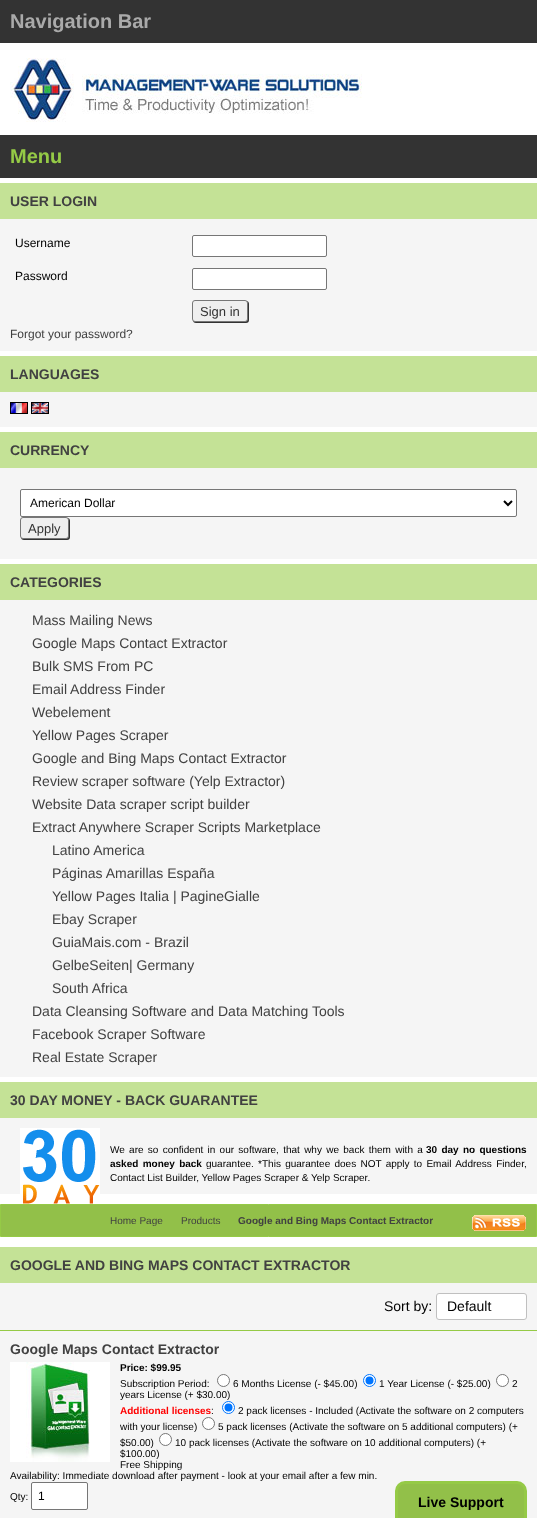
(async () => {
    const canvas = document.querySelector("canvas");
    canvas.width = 537;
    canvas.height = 1518;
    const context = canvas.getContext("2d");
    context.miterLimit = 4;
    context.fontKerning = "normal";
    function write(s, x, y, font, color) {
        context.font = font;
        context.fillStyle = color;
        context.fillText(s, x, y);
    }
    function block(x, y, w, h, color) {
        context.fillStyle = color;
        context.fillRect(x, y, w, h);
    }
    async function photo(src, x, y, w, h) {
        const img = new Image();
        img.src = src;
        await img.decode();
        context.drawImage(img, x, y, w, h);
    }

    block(0, 0, 537, 1518, "rgb(255, 255, 255)");
    block(0, 0, 537, 43, "rgb(51, 51, 51)");
    write("Navigation Bar", 10, 28, "bold 20px Liberation Sans", "rgb(170, 170, 170)");
    await photo("media/1.png", 10, 58, 352, 64);
    block(0, 135, 537, 43, "rgb(51, 51, 51)");
    write("Menu", 10, 163, "bold 20px Liberation Sans", "rgb(149, 202, 70)");
    block(0, 183, 537, 36, "rgb(196, 226, 150)");
    write("USER LOGIN", 10, 206, "bold 14px Liberation Sans", "rgb(65, 65, 65)");
    block(0, 219, 537, 132, "rgb(245, 245, 245)");
    write("Username", 15, 247, "12px Liberation Sans", "rgb(0, 0, 0)");
    context.fillStyle = "rgb(255, 255, 255)";
    context.beginPath();
    context.roundRect(192.5, 235.5, 134, 21, 1.5);
    context.fill();
    context.strokeStyle = "rgb(118, 118, 118)";
    context.stroke();
    write("Password", 15, 280, "12px Liberation Sans", "rgb(0, 0, 0)");
    context.fillStyle = "rgb(255, 255, 255)";
    context.beginPath();
    context.roundRect(192.5, 268.5, 134, 21, 1.5);
    context.fill();
    context.stroke();
    context.fillStyle = "rgb(51, 51, 51)";
    context.filter = "blur(0.5px)";
    context.beginPath();
    context.roundRect(193, 301, 56, 22, 3);
    context.fill();
    context.filter = "none";
    context.fillStyle = "rgb(239, 239, 239)";
    context.beginPath();
    context.roundRect(192.5, 300.5, 55, 21, 2.5);
    context.fill();
    context.strokeStyle = "rgb(119, 119, 119)";
    context.stroke();
    write("Sign in", 200, 316, "13px Liberation Sans", "rgb(51, 51, 51)");
    write("Forgot your password?", 10, 338, "12px Liberation Sans", "rgb(65, 65, 65)");
    block(0, 356, 537, 36, "rgb(196, 226, 150)");
    write("LANGUAGES", 10, 379, "bold 14px Liberation Sans", "rgb(65, 65, 65)");
    block(0, 392, 537, 35, "rgb(245, 245, 245)");
    await photo("media/2.png", 10, 402, 18, 12);
    await photo("media/3.png", 31, 402, 18, 12);
    block(0, 432, 537, 36, "rgb(196, 226, 150)");
    write("CURRENCY", 10, 455, "bold 14px Liberation Sans", "rgb(65, 65, 65)");
    block(0, 468, 537, 91, "rgb(245, 245, 245)");
    context.fillStyle = "rgb(255, 255, 255)";
    context.beginPath();
    context.roundRect(20.5, 489.5, 496, 27, 1.5);
    context.fill();
    context.strokeStyle = "rgb(118, 118, 118)";
    context.stroke();
    context.beginPath();
    context.moveTo(504, 501);
    context.lineTo(508, 505);
    context.lineTo(512, 501);
    context.strokeStyle = "rgb(0, 0, 0)";
    context.lineWidth = 2;
    context.stroke();
    write("American Dollar", 30, 507, "12px Liberation Sans", "rgb(0, 0, 0)");
    context.fillStyle = "rgb(51, 51, 51)";
    context.filter = "blur(0.5px)";
    context.beginPath();
    context.roundRect(21, 518, 49, 22, 3);
    context.fill();
    context.filter = "none";
    context.fillStyle = "rgb(239, 239, 239)";
    context.beginPath();
    context.roundRect(20.5, 517.5, 48, 21, 2.5);
    context.fill();
    context.strokeStyle = "rgb(119, 119, 119)";
    context.lineWidth = 1;
    context.stroke();
    write("Apply", 28, 533, "13px Liberation Sans", "rgb(51, 51, 51)");
    block(0, 564, 537, 36, "rgb(196, 226, 150)");
    write("CATEGORIES", 10, 587, "bold 14px Liberation Sans", "rgb(65, 65, 65)");
    block(0, 600, 537, 477, "rgb(245, 245, 245)");
    write("Mass Mailing News", 32, 625, "14px Liberation Sans", "rgb(65, 65, 65)");
    write("Google Maps Contact Extractor", 32, 648, "14px Liberation Sans", "rgb(65, 65, 65)");
    write("Bulk SMS From PC", 32, 671, "14px Liberation Sans", "rgb(65, 65, 65)");
    write("Email Address Finder", 32, 694, "14px Liberation Sans", "rgb(65, 65, 65)");
    write("Webelement", 32, 717, "14px Liberation Sans", "rgb(65, 65, 65)");
    write("Yellow Pages Scraper", 32, 740, "14px Liberation Sans", "rgb(65, 65, 65)");
    write("Google and Bing Maps Contact Extractor", 32, 763, "14px Liberation Sans", "rgb(65, 65, 65)");
    write("Review scraper software (Yelp Extractor)", 32, 786, "14px Liberation Sans", "rgb(65, 65, 65)");
    write("Website Data scraper script builder", 32, 809, "14px Liberation Sans", "rgb(65, 65, 65)");
    write("Extract Anywhere Scraper Scripts Marketplace", 32, 832, "14px Liberation Sans", "rgb(65, 65, 65)");
    write("Latino America", 52, 855, "14px Liberation Sans", "rgb(65, 65, 65)");
    write("Páginas Amarillas España", 52, 878, "14px Liberation Sans", "rgb(65, 65, 65)");
    write("Yellow Pages Italia | PagineGialle", 52, 901, "14px Liberation Sans", "rgb(65, 65, 65)");
    write("Ebay Scraper", 52, 924, "14px Liberation Sans", "rgb(65, 65, 65)");
    write("GuiaMais.com - Brazil", 52, 947, "14px Liberation Sans", "rgb(65, 65, 65)");
    write("GelbeSeiten| Germany", 52, 970, "14px Liberation Sans", "rgb(65, 65, 65)");
    write("South Africa", 52, 993, "14px Liberation Sans", "rgb(65, 65, 65)");
    write("Data Cleansing Software and Data Matching Tools", 32, 1016, "14px Liberation Sans", "rgb(65, 65, 65)");
    write("Facebook Scraper Software", 32, 1039, "14px Liberation Sans", "rgb(65, 65, 65)");
    write("Real Estate Scraper", 32, 1062, "14px Liberation Sans", "rgb(65, 65, 65)");
    block(0, 1082, 537, 36, "rgb(196, 226, 150)");
    write("30 DAY MONEY - BACK GUARANTEE", 10, 1105, "bold 14px Liberation Sans", "rgb(65, 65, 65)");
    block(0, 1118, 537, 76, "rgb(245, 245, 245)");
    await photo("media/4.png", 20, 1128, 80, 76);
    context.wordSpacing = "1.5px";
    write("We are so confident in our software, that why we back them with a", 110, 1153, "10px Liberation Sans", "rgb(0, 0, 0)");
    write("30 day no questions", 426, 1153, "bold 10px Liberation Sans", "rgb(0, 0, 0)");
    write("asked money back", 110, 1167, "bold 10px Liberation Sans", "rgb(0, 0, 0)");
    write("guarantee. *This guarantee does NOT apply to Email Address Finder,", 206, 1167, "10px Liberation Sans", "rgb(0, 0, 0)");
    context.wordSpacing = "0px";
    write("Contact List Builder, Yellow Pages Scraper & Yelp Scraper.", 110, 1181, "10px Liberation Sans", "rgb(0, 0, 0)");
    context.fillStyle = "rgb(146, 192, 73)";
    context.beginPath();
    context.rect(0.5, 1204.5, 536, 32);
    context.fill();
    context.strokeStyle = "rgb(149, 202, 70)";
    context.stroke();
    write("Home Page", 110, 1224, "10px Liberation Sans", "rgb(65, 65, 65)");
    write("Products", 181, 1224, "10px Liberation Sans", "rgb(65, 65, 65)");
    write("Google and Bing Maps Contact Extractor", 238, 1224, "bold 10px Liberation Sans", "rgb(65, 65, 65)");
    await photo("media/5.png", 472, 1215, 54, 16);
    block(0, 1247, 537, 36, "rgb(196, 226, 150)");
    write("GOOGLE AND BING MAPS CONTACT EXTRACTOR", 10, 1270, "bold 14px Liberation Sans", "rgb(65, 65, 65)");
    block(0, 1283, 537, 235, "rgb(245, 245, 245)");
    write("Sort by:", 384, 1311, "14px Liberation Sans", "rgb(0, 0, 0)");
    context.fillStyle = "rgb(255, 255, 255)";
    context.beginPath();
    context.roundRect(436.5, 1293.5, 90, 26, 2.5);
    context.fill();
    context.strokeStyle = "rgb(192, 192, 192)";
    context.stroke();
    write("Default", 447, 1311, "14px Liberation Sans", "rgb(0, 0, 0)");
    block(0, 1330, 537, 1, "rgb(149, 202, 70)");
    write("Google Maps Contact Extractor", 10, 1354, "bold 14px Liberation Sans", "rgb(65, 65, 65)");
    await photo("media/6.png", 10, 1362, 100, 100);
    write("Price: $99.95", 120, 1371, "bold 10px Liberation Sans", "rgb(0, 0, 0)");
    write("Subscription Period:", 120, 1387, "10px Liberation Sans", "rgb(0, 0, 0)");
    context.fillStyle = "rgb(255, 255, 255)";
    context.beginPath();
    context.arc(223.5, 1380.5, 6, 0, Math.PI * 2);
    context.fill();
    context.strokeStyle = "rgb(118, 118, 118)";
    context.stroke();
    write("6 Months License (- $45.00)", 233, 1387, "10px Liberation Sans", "rgb(0, 0, 0)");
    context.fillStyle = "rgb(255, 255, 255)";
    context.beginPath();
    context.arc(369.5, 1380.5, 6, 0, Math.PI * 2);
    context.fill();
    context.strokeStyle = "rgb(0, 117, 255)";
    context.stroke();
    context.fillStyle = "rgb(0, 117, 255)";
    context.beginPath();
    context.arc(369.5, 1380.5, 4, 0, Math.PI * 2);
    context.fill();
    write("1 Year License (- $25.00)", 379, 1387, "10px Liberation Sans", "rgb(0, 0, 0)");
    context.fillStyle = "rgb(255, 255, 255)";
    context.beginPath();
    context.arc(502.5, 1380.5, 6, 0, Math.PI * 2);
    context.fill();
    context.strokeStyle = "rgb(118, 118, 118)";
    context.stroke();
    write("2", 512, 1387, "10px Liberation Sans", "rgb(0, 0, 0)");
    write("years License (+ $30.00)", 120, 1398, "10px Liberation Sans", "rgb(0, 0, 0)");
    write("Additional licenses", 120, 1414, "bold 10px Liberation Sans", "rgb(255, 0, 0)");
    context.fillStyle = "rgb(255, 255, 255)";
    context.beginPath();
    context.arc(228.5, 1407.5, 6, 0, Math.PI * 2);
    context.fill();
    context.strokeStyle = "rgb(0, 117, 255)";
    context.stroke();
    context.fillStyle = "rgb(0, 117, 255)";
    context.beginPath();
    context.arc(228.5, 1407.5, 4, 0, Math.PI * 2);
    context.fill();
    write("2 pack licenses - Included (Activate the software on 2 computers", 238, 1414, "10px Liberation Sans", "rgb(0, 0, 0)");
    write("with your license)", 120, 1430, "10px Liberation Sans", "rgb(0, 0, 0)");
    context.fillStyle = "rgb(255, 255, 255)";
    context.beginPath();
    context.arc(208.5, 1423.5, 6, 0, Math.PI * 2);
    context.fill();
    context.strokeStyle = "rgb(118, 118, 118)";
    context.stroke();
    write("5 pack licenses (Activate the software on 5 additional computers) (+", 218, 1430, "10px Liberation Sans", "rgb(0, 0, 0)");
    write("$50.00)", 120, 1446, "10px Liberation Sans", "rgb(0, 0, 0)");
    context.fillStyle = "rgb(255, 255, 255)";
    context.beginPath();
    context.arc(165.5, 1439.5, 6, 0, Math.PI * 2);
    context.fill();
    context.stroke();
    write("10 pack licenses (Activate the software on 10 additional computers) (+", 175, 1446, "10px Liberation Sans", "rgb(0, 0, 0)");
    write("$100.00)", 120, 1457, "10px Liberation Sans", "rgb(0, 0, 0)");
    write(":", 211, 1414, "10px Liberation Sans", "rgb(0, 0, 0)");
    write("Free Shipping", 120, 1468, "10px Liberation Sans", "rgb(0, 0, 0)");
    write("Availability: Immediate download after payment - look at your email after a few min.", 10, 1479, "10px Liberation Sans", "rgb(0, 0, 0)");
    write("Qty:", 10, 1500, "10px Liberation Sans", "rgb(0, 0, 0)");
    context.fillStyle = "rgb(255, 255, 255)";
    context.beginPath();
    context.roundRect(31.5, 1482.5, 56, 27, 1.5);
    context.fill();
    context.stroke();
    write("1", 38, 1500, "12px Liberation Sans", "rgb(0, 0, 0)");
    context.fillStyle = "rgb(146, 192, 73)";
    context.beginPath();
    context.roundRect(396.5, 1482.5, 129, 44, 8.5);
    context.fill();
    context.strokeStyle = "rgb(149, 202, 70)";
    context.lineWidth = 3;
    context.stroke();
    write("Live Support", 418, 1507, "bold 14px Liberation Sans", "rgb(0, 0, 0)");
})();
